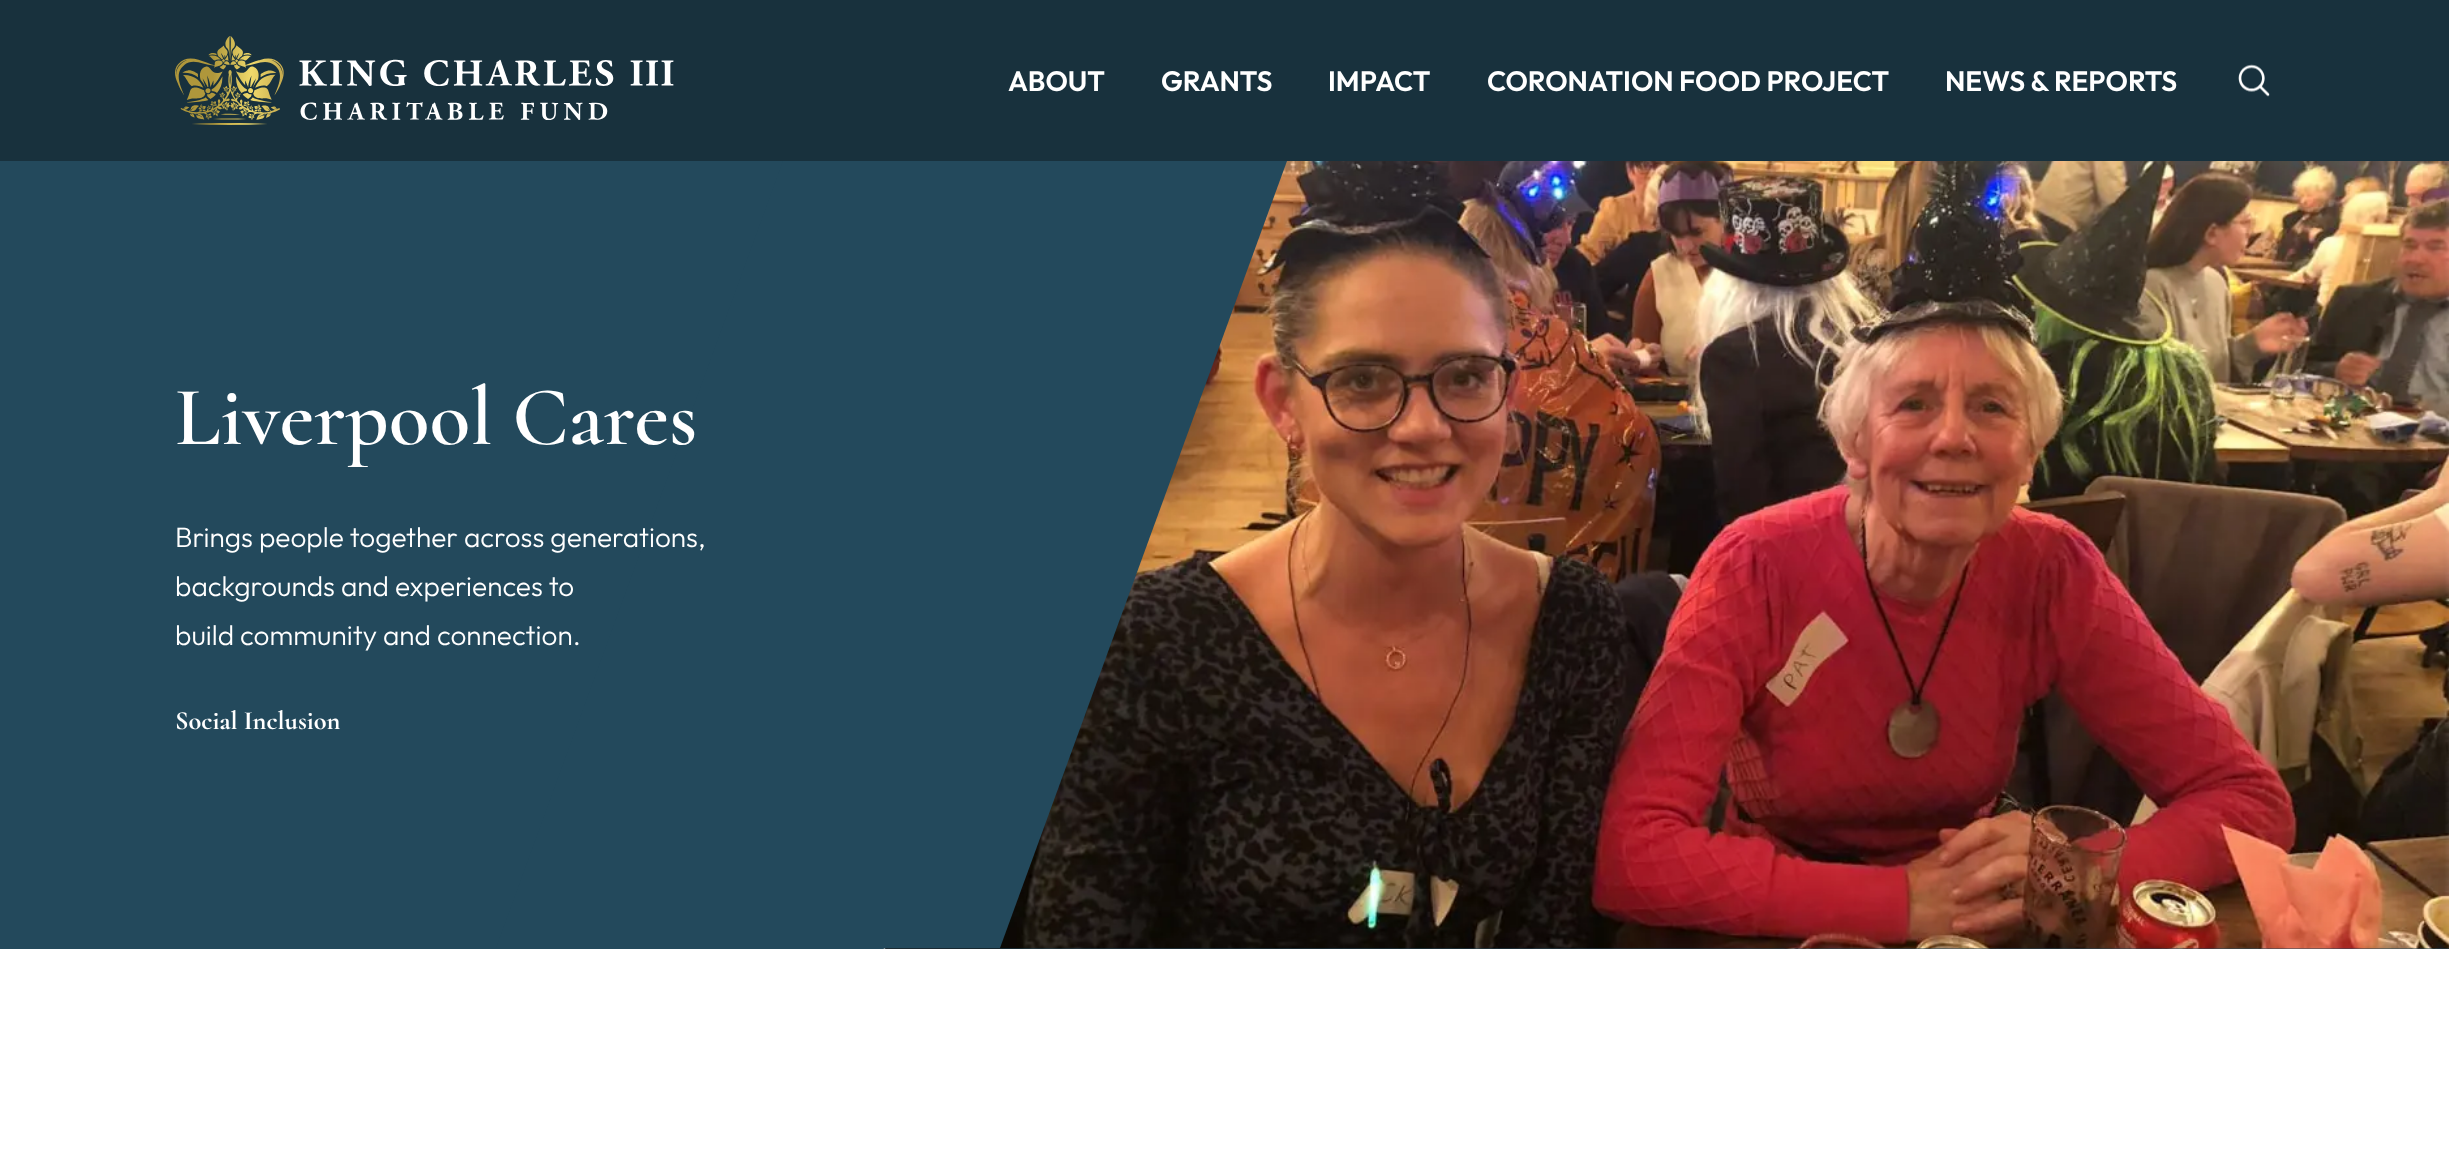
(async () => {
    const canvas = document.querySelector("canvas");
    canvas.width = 2449;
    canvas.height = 1170;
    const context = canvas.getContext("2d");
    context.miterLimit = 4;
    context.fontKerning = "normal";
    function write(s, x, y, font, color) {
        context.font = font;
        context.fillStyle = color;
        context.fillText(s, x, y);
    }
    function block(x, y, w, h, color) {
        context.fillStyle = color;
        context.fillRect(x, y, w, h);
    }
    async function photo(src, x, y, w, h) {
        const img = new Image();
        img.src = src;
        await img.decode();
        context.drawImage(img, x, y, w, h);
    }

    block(0, 0, 2449, 1170, "rgb(255, 255, 255)");
    block(0, 0, 2449, 161, "rgb(24, 49, 61)");
    await photo("media/1.png", 175, 36, 499, 89);
    write("ABOUT", 1008, 91, "600 28px Outfit", "rgb(255, 255, 255)");
    write("GRANTS", 1161, 91, "600 28px Outfit", "rgb(255, 255, 255)");
    write("IMPACT", 1328, 91, "600 28px Outfit", "rgb(255, 255, 255)");
    write("CORONATION FOOD PROJECT", 1487, 91, "600 28px Outfit", "rgb(255, 255, 255)");
    write("NEWS & REPORTS", 1945, 91, "600 28px Outfit", "rgb(255, 255, 255)");
    await photo("media/2.png", 2238, 64, 32, 33);
    block(0, 161, 2449, 788, "rgb(35, 73, 92)");
    await photo("media/3.png", 883, 161, 1566, 788);
    context.beginPath();
    context.moveTo(783, 161);
    context.lineTo(1287, 161);
    context.lineTo(1000, 948);
    context.lineTo(496, 948);
    context.closePath();
    context.fill();
    write("Liverpool Cares", 175, 444, "600 84px Cormorant", "rgb(255, 255, 255)");
    write("Brings people together across generations,", 175, 547, "300 28px Outfit", "rgb(255, 255, 255)");
    write("backgrounds and experiences to", 175, 596, "300 28px Outfit", "rgb(255, 255, 255)");
    write("build community and connection.", 175, 645, "300 28px Outfit", "rgb(255, 255, 255)");
    write("Social Inclusion", 175, 729, "bold 26.25px Cormorant", "rgb(255, 255, 255)");
})();
